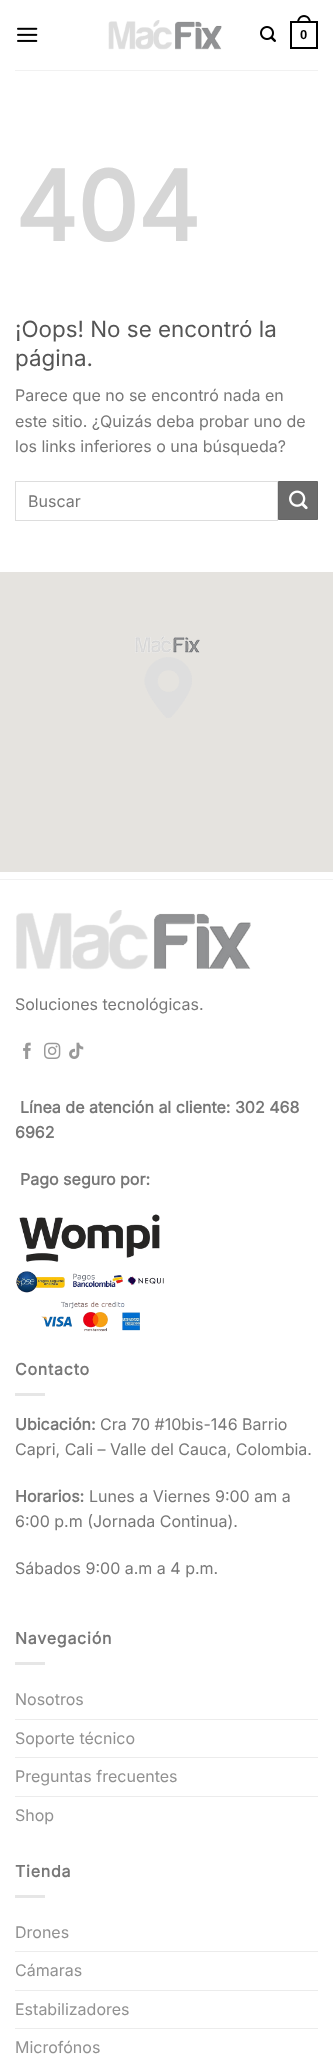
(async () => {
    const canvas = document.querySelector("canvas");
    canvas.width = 333;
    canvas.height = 2057;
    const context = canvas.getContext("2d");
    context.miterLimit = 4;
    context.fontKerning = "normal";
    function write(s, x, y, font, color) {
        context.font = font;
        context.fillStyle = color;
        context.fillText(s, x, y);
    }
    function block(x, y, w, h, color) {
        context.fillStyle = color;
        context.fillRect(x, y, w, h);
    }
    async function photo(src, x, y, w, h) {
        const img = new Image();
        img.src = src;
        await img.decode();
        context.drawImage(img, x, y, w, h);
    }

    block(0, 0, 333, 2057, "rgb(255, 255, 255)");
    await photo("media/1.png", 17, 27, 21, 15);
    await photo("media/2.png", 108, 20, 114, 30);
    await photo("media/3.png", 260, 26, 16, 16);
    context.strokeStyle = "rgb(0, 0, 0)";
    context.lineWidth = 2;
    context.strokeRect(291, 22, 26, 26);
    context.fillStyle = "rgb(0, 0, 0)";
    context.beginPath();
    context.moveTo(304, 15);
    context.bezierCurveTo(308.5, 15, 311, 19, 311, 23);
    context.lineTo(297, 23);
    context.bezierCurveTo(297, 19, 299.5, 15, 304, 15);
    context.closePath();
    context.moveTo(304, 17);
    context.bezierCurveTo(307.5, 17, 309, 20, 309, 23);
    context.lineTo(299, 23);
    context.bezierCurveTo(299, 20, 300.5, 17, 304, 17);
    context.closePath();
    context.fill("evenodd");
    write("0", 300, 39, "bold 13px Liberation Sans", "rgb(0, 0, 0)");
    block(15, 70, 303, 1, "rgb(241, 241, 241)");
    write("404", 15, 241, "bold 96px Inter", "rgb(214, 214, 214)");
    write("¡Oops! No se encontró la", 15, 337, "22.4px Inter", "rgb(85, 85, 85)");
    write("página.", 15, 366, "22.4px Inter", "rgb(85, 85, 85)");
    write("Parece que no se encontró nada en", 15, 401, "16px Inter", "rgb(119, 119, 119)");
    write("este sitio. ¿Quizás deba probar uno de", 15, 427, "16px Inter", "rgb(119, 119, 119)");
    write("los links inferiores o una búsqueda?", 15, 452, "16px Inter", "rgb(119, 119, 119)");
    context.strokeStyle = "rgb(221, 221, 221)";
    context.lineWidth = 1;
    context.strokeRect(15.5, 481.5, 262, 39);
    write("Buscar", 28, 507, "16px Inter", "rgb(119, 119, 119)");
    context.fillStyle = "rgb(107, 107, 107)";
    context.beginPath();
    context.rect(278.5, 481.5, 39, 38);
    context.fill();
    context.strokeStyle = "rgb(102, 102, 102)";
    context.stroke();
    await photo("media/4.png", 289, 490, 19, 20);
    await photo("media/5.png", 0, 572, 333, 300);
    block(0, 879, 333, 1, "rgb(242, 242, 242)");
    await photo("media/6.png", 16, 910, 235, 60);
    write("Soluciones tecnológicas.", 15, 1010, "16px Inter", "rgb(119, 119, 119)");
    await photo("media/7.png", 23, 1042, 8, 17);
    await photo("media/8.png", 44, 1042, 17, 17);
    await photo("media/9.png", 69, 1042, 15, 17);
    write("Línea de atención al cliente: 302 468", 20, 1113, "bold 16px Inter", "rgb(119, 119, 119)");
    write("6962", 15, 1138, "bold 16px Inter", "rgb(119, 119, 119)");
    write("Pago seguro por:", 20, 1185, "bold 16px Inter", "rgb(119, 119, 119)");
    await photo("media/10.png", 16, 1214, 148, 118);
    context.letterSpacing = "0.75px";
    write("Contacto", 15, 1375, "bold 16px Inter", "rgb(119, 119, 119)");
    block(15, 1393, 30, 3, "rgb(230, 230, 230)");
    context.letterSpacing = "0px";
    write("Ubicación:", 15, 1430, "bold 16px Inter", "rgb(119, 119, 119)");
    write("Cra 70 #10bis-146 Barrio", 100, 1430, "16px Inter", "rgb(119, 119, 119)");
    write("Capri, Cali – Valle del Cauca, Colombia.", 15, 1455, "16px Inter", "rgb(119, 119, 119)");
    write("Horarios:", 15, 1502, "bold 16px Inter", "rgb(119, 119, 119)");
    write("Lunes a Viernes 9:00 am a", 89, 1502, "16px Inter", "rgb(119, 119, 119)");
    write("6:00 p.m (Jornada Continua).", 15, 1527, "16px Inter", "rgb(119, 119, 119)");
    write("Sábados 9:00 a.m a 4 p.m.", 15, 1574, "16px Inter", "rgb(119, 119, 119)");
    context.letterSpacing = "0.75px";
    write("Navegación", 15, 1644, "bold 16px Inter", "rgb(119, 119, 119)");
    block(15, 1662, 30, 3, "rgb(230, 230, 230)");
    context.letterSpacing = "0px";
    write("Nosotros", 15, 1705, "16px Inter", "rgb(145, 145, 145)");
    block(15, 1719, 303, 1, "rgb(236, 236, 236)");
    write("Soporte técnico", 15, 1744, "16px Inter", "rgb(145, 145, 145)");
    block(15, 1757, 303, 1, "rgb(236, 236, 236)");
    write("Preguntas frecuentes", 15, 1782, "16px Inter", "rgb(145, 145, 145)");
    block(15, 1796, 303, 1, "rgb(236, 236, 236)");
    write("Shop", 15, 1821, "16px Inter", "rgb(145, 145, 145)");
    context.letterSpacing = "0.75px";
    write("Tienda", 15, 1877, "bold 16px Inter", "rgb(119, 119, 119)");
    block(15, 1895, 30, 3, "rgb(230, 230, 230)");
    context.letterSpacing = "0px";
    write("Drones", 15, 1938, "16px Inter", "rgb(145, 145, 145)");
    block(15, 1951, 303, 1, "rgb(236, 236, 236)");
    write("Cámaras", 15, 1976, "16px Inter", "rgb(145, 145, 145)");
    block(15, 1990, 303, 1, "rgb(236, 236, 236)");
    write("Estabilizadores", 15, 2015, "16px Inter", "rgb(145, 145, 145)");
    block(15, 2028, 303, 1, "rgb(236, 236, 236)");
    write("Microfónos", 15, 2053, "16px Inter", "rgb(145, 145, 145)");
})();
